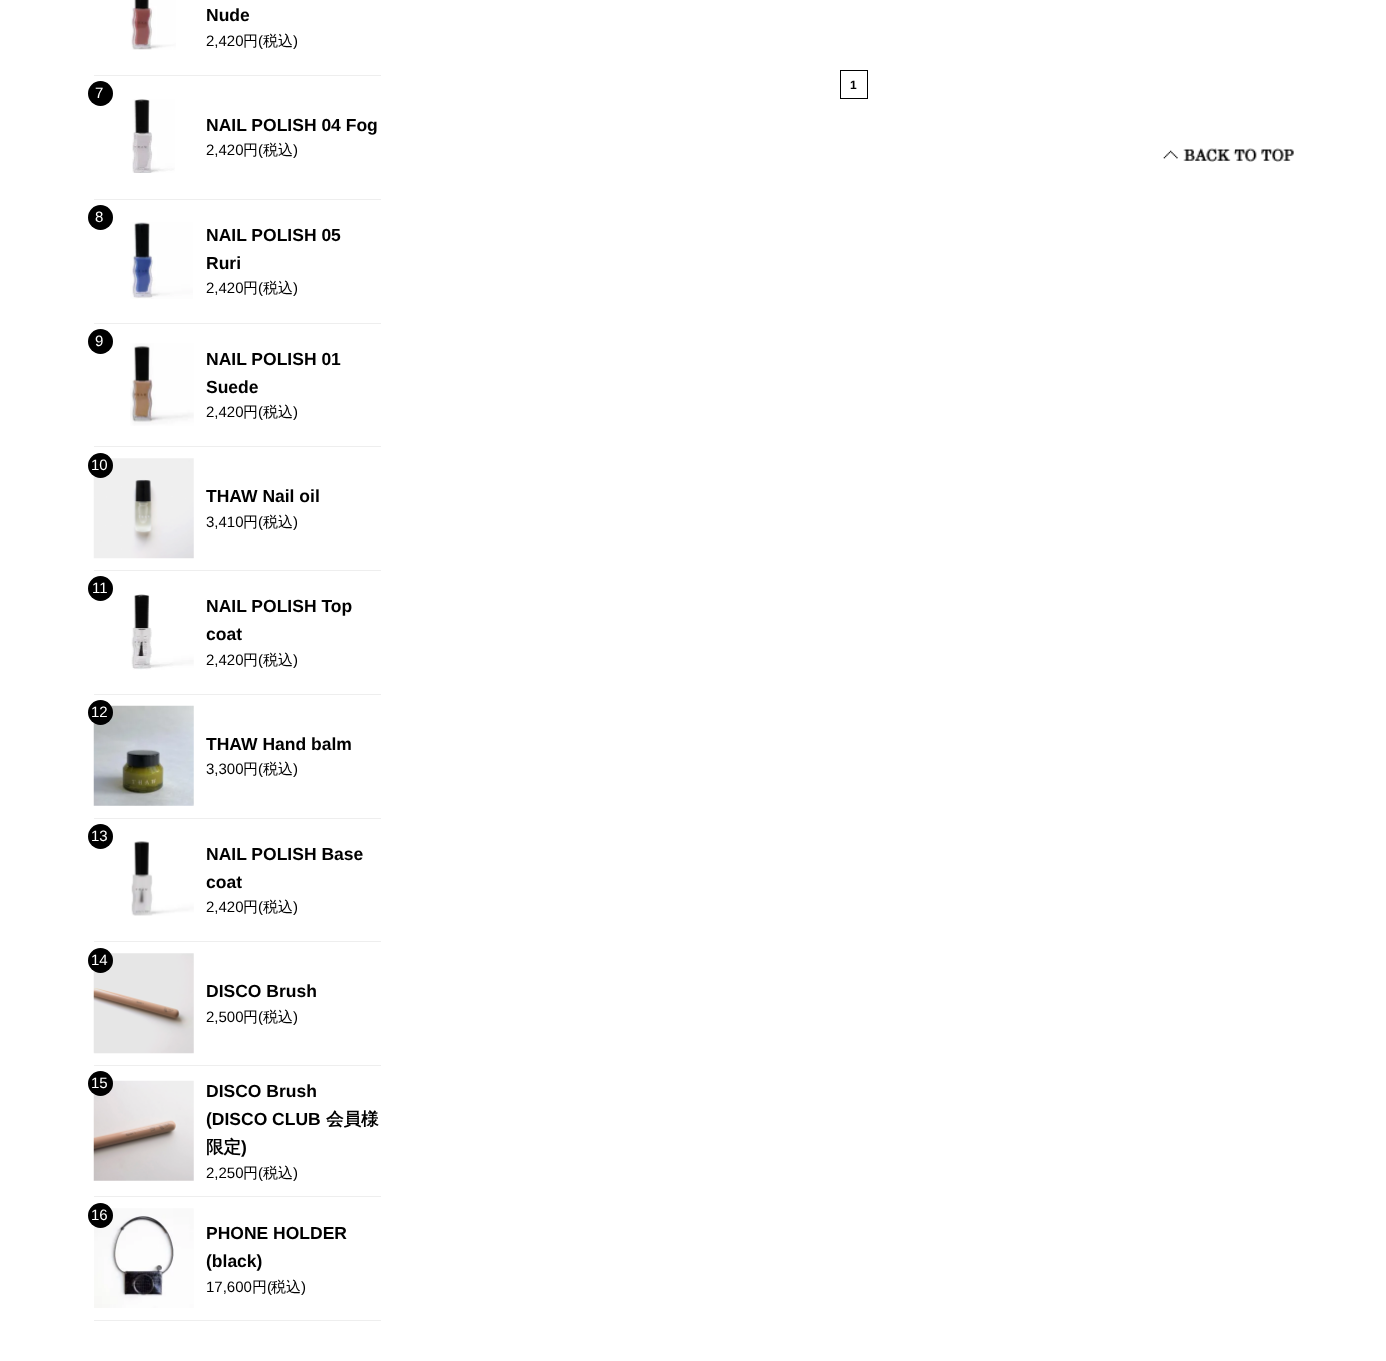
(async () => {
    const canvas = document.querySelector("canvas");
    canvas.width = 1386;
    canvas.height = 1361;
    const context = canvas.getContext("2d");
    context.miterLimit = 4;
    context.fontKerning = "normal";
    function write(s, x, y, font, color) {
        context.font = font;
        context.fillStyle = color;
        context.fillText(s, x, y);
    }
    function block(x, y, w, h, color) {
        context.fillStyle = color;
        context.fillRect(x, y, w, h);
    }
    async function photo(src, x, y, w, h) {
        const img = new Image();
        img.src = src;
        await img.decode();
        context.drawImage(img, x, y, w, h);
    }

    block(0, 0, 1386, 1361, "rgb(255, 255, 255)");
    block(94, 75, 287, 1, "rgb(238, 238, 238)");
    await photo("media/1.png", 130, 0, 46, 50);
    write("Nude", 206, 21, "bold 17.5px Liberation Sans", "rgb(0, 0, 0)");
    write("2,420", 206, 46, "15px Liberation Sans", "rgb(0, 0, 0)");
    write("円", 243, 46, "500 15px WenQuanYi Zen Hei", "rgb(0, 0, 0)");
    write("(", 258, 46, "15px Liberation Sans", "rgb(0, 0, 0)");
    write("税込", 263, 46, "500 15px WenQuanYi Zen Hei", "rgb(0, 0, 0)");
    write(")", 293, 46, "15px Liberation Sans", "rgb(0, 0, 0)");
    block(94, 199, 287, 1, "rgb(238, 238, 238)");
    context.fillStyle = "rgb(0, 0, 0)";
    context.beginPath();
    context.arc(100.5, 93.5, 12.5, 0, Math.PI * 2);
    context.fill();
    write("7", 95, 98, "15px Liberation Sans", "rgb(255, 255, 255)");
    await photo("media/2.png", 132, 99, 43, 74);
    write("NAIL POLISH 04 Fog", 206, 131, "bold 17.5px Liberation Sans", "rgb(0, 0, 0)");
    write("2,420", 206, 155, "15px Liberation Sans", "rgb(0, 0, 0)");
    write("円", 243, 155, "500 15px WenQuanYi Zen Hei", "rgb(0, 0, 0)");
    write("(", 258, 155, "15px Liberation Sans", "rgb(0, 0, 0)");
    write("税込", 263, 155, "500 15px WenQuanYi Zen Hei", "rgb(0, 0, 0)");
    write(")", 293, 155, "15px Liberation Sans", "rgb(0, 0, 0)");
    block(94, 323, 287, 1, "rgb(238, 238, 238)");
    context.fillStyle = "rgb(0, 0, 0)";
    context.beginPath();
    context.arc(100.5, 217.5, 12.5, 0, Math.PI * 2);
    context.fill();
    write("8", 95, 222, "15px Liberation Sans", "rgb(255, 255, 255)");
    await photo("media/3.png", 130, 222, 63, 77);
    write("NAIL POLISH 05", 206, 241, "bold 17.5px Liberation Sans", "rgb(0, 0, 0)");
    write("Ruri", 206, 269, "bold 17.5px Liberation Sans", "rgb(0, 0, 0)");
    write("2,420", 206, 293, "15px Liberation Sans", "rgb(0, 0, 0)");
    write("円", 243, 293, "500 15px WenQuanYi Zen Hei", "rgb(0, 0, 0)");
    write("(", 258, 293, "15px Liberation Sans", "rgb(0, 0, 0)");
    write("税込", 263, 293, "500 15px WenQuanYi Zen Hei", "rgb(0, 0, 0)");
    write(")", 293, 293, "15px Liberation Sans", "rgb(0, 0, 0)");
    block(94, 446, 287, 1, "rgb(238, 238, 238)");
    context.fillStyle = "rgb(0, 0, 0)";
    context.beginPath();
    context.arc(100.5, 341.5, 12.5, 0, Math.PI * 2);
    context.fill();
    write("9", 95, 346, "15px Liberation Sans", "rgb(255, 255, 255)");
    await photo("media/4.png", 130, 343, 64, 83);
    write("NAIL POLISH 01", 206, 365, "bold 17.5px Liberation Sans", "rgb(0, 0, 0)");
    write("Suede", 206, 393, "bold 17.5px Liberation Sans", "rgb(0, 0, 0)");
    write("2,420", 206, 417, "15px Liberation Sans", "rgb(0, 0, 0)");
    write("円", 243, 417, "500 15px WenQuanYi Zen Hei", "rgb(0, 0, 0)");
    write("(", 258, 417, "15px Liberation Sans", "rgb(0, 0, 0)");
    write("税込", 263, 417, "500 15px WenQuanYi Zen Hei", "rgb(0, 0, 0)");
    write(")", 293, 417, "15px Liberation Sans", "rgb(0, 0, 0)");
    block(94, 570, 287, 1, "rgb(238, 238, 238)");
    await photo("media/5.png", 93, 458, 101, 101);
    context.fillStyle = "rgb(0, 0, 0)";
    context.beginPath();
    context.arc(100.5, 465.5, 12.5, 0, Math.PI * 2);
    context.fill();
    write("10", 91, 470, "15px Liberation Sans", "rgb(255, 255, 255)");
    write("THAW Nail oil", 206, 502, "bold 17.5px Liberation Sans", "rgb(0, 0, 0)");
    write("3,410", 206, 527, "15px Liberation Sans", "rgb(0, 0, 0)");
    write("円", 243, 527, "500 15px WenQuanYi Zen Hei", "rgb(0, 0, 0)");
    write("(", 258, 527, "15px Liberation Sans", "rgb(0, 0, 0)");
    write("税込", 263, 527, "500 15px WenQuanYi Zen Hei", "rgb(0, 0, 0)");
    write(")", 293, 527, "15px Liberation Sans", "rgb(0, 0, 0)");
    block(94, 694, 287, 1, "rgb(238, 238, 238)");
    context.fillStyle = "rgb(0, 0, 0)";
    context.beginPath();
    context.arc(100.5, 588.5, 12.5, 0, Math.PI * 2);
    context.fill();
    write("11", 92, 593, "15px Liberation Sans", "rgb(255, 255, 255)");
    await photo("media/6.png", 131, 594, 63, 76);
    write("NAIL POLISH Top", 206, 612, "bold 17.5px Liberation Sans", "rgb(0, 0, 0)");
    write("coat", 206, 640, "bold 17.5px Liberation Sans", "rgb(0, 0, 0)");
    write("2,420", 206, 665, "15px Liberation Sans", "rgb(0, 0, 0)");
    write("円", 243, 665, "500 15px WenQuanYi Zen Hei", "rgb(0, 0, 0)");
    write("(", 258, 665, "15px Liberation Sans", "rgb(0, 0, 0)");
    write("税込", 263, 665, "500 15px WenQuanYi Zen Hei", "rgb(0, 0, 0)");
    write(")", 293, 665, "15px Liberation Sans", "rgb(0, 0, 0)");
    block(94, 818, 287, 1, "rgb(238, 238, 238)");
    await photo("media/7.png", 93, 705, 101, 101);
    context.fillStyle = "rgb(0, 0, 0)";
    context.beginPath();
    context.arc(100.5, 712.5, 12.5, 0, Math.PI * 2);
    context.fill();
    write("12", 91, 717, "15px Liberation Sans", "rgb(255, 255, 255)");
    write("THAW Hand balm", 206, 750, "bold 17.5px Liberation Sans", "rgb(0, 0, 0)");
    write("3,300", 206, 774, "15px Liberation Sans", "rgb(0, 0, 0)");
    write("円", 243, 774, "500 15px WenQuanYi Zen Hei", "rgb(0, 0, 0)");
    write("(", 258, 774, "15px Liberation Sans", "rgb(0, 0, 0)");
    write("税込", 263, 774, "500 15px WenQuanYi Zen Hei", "rgb(0, 0, 0)");
    write(")", 293, 774, "15px Liberation Sans", "rgb(0, 0, 0)");
    block(94, 941, 287, 1, "rgb(238, 238, 238)");
    context.fillStyle = "rgb(0, 0, 0)";
    context.beginPath();
    context.arc(100.5, 836.5, 12.5, 0, Math.PI * 2);
    context.fill();
    write("13", 91, 841, "15px Liberation Sans", "rgb(255, 255, 255)");
    await photo("media/8.png", 131, 841, 63, 75);
    write("NAIL POLISH Base", 206, 860, "bold 17.5px Liberation Sans", "rgb(0, 0, 0)");
    write("coat", 206, 888, "bold 17.5px Liberation Sans", "rgb(0, 0, 0)");
    write("2,420", 206, 912, "15px Liberation Sans", "rgb(0, 0, 0)");
    write("円", 243, 912, "500 15px WenQuanYi Zen Hei", "rgb(0, 0, 0)");
    write("(", 258, 912, "15px Liberation Sans", "rgb(0, 0, 0)");
    write("税込", 263, 912, "500 15px WenQuanYi Zen Hei", "rgb(0, 0, 0)");
    write(")", 293, 912, "15px Liberation Sans", "rgb(0, 0, 0)");
    block(94, 1065, 287, 1, "rgb(238, 238, 238)");
    await photo("media/9.png", 93, 953, 101, 101);
    context.fillStyle = "rgb(0, 0, 0)";
    context.beginPath();
    context.arc(100.5, 960.5, 12.5, 0, Math.PI * 2);
    context.fill();
    write("14", 91, 965, "15px Liberation Sans", "rgb(255, 255, 255)");
    write("DISCO Brush", 206, 997, "bold 17.5px Liberation Sans", "rgb(0, 0, 0)");
    write("2,500", 206, 1022, "15px Liberation Sans", "rgb(0, 0, 0)");
    write("円", 243, 1022, "500 15px WenQuanYi Zen Hei", "rgb(0, 0, 0)");
    write("(", 258, 1022, "15px Liberation Sans", "rgb(0, 0, 0)");
    write("税込", 263, 1022, "500 15px WenQuanYi Zen Hei", "rgb(0, 0, 0)");
    write(")", 293, 1022, "15px Liberation Sans", "rgb(0, 0, 0)");
    block(94, 1196, 287, 1, "rgb(238, 238, 238)");
    await photo("media/10.png", 93, 1080, 101, 101);
    context.fillStyle = "rgb(0, 0, 0)";
    context.beginPath();
    context.arc(100.5, 1083.5, 12.5, 0, Math.PI * 2);
    context.fill();
    write("15", 91, 1088, "15px Liberation Sans", "rgb(255, 255, 255)");
    write("DISCO Brush", 206, 1097, "bold 17.5px Liberation Sans", "rgb(0, 0, 0)");
    write("(DISCO CLUB", 206, 1125, "bold 17.5px Liberation Sans", "rgb(0, 0, 0)");
    write("会員様", 326, 1125, "bold 17.5px WenQuanYi Zen Hei", "rgb(0, 0, 0)");
    write("限定", 206, 1153, "bold 17.5px WenQuanYi Zen Hei", "rgb(0, 0, 0)");
    write(")", 241, 1153, "bold 17.5px Liberation Sans", "rgb(0, 0, 0)");
    write("2,250", 206, 1178, "15px Liberation Sans", "rgb(0, 0, 0)");
    write("円", 243, 1178, "500 15px WenQuanYi Zen Hei", "rgb(0, 0, 0)");
    write("(", 258, 1178, "15px Liberation Sans", "rgb(0, 0, 0)");
    write("税込", 263, 1178, "500 15px WenQuanYi Zen Hei", "rgb(0, 0, 0)");
    write(")", 293, 1178, "15px Liberation Sans", "rgb(0, 0, 0)");
    block(94, 1320, 287, 1, "rgb(238, 238, 238)");
    await photo("media/11.png", 94, 1208, 100, 100);
    context.fillStyle = "rgb(0, 0, 0)";
    context.beginPath();
    context.arc(100.5, 1215.5, 12.5, 0, Math.PI * 2);
    context.fill();
    write("16", 91, 1220, "15px Liberation Sans", "rgb(255, 255, 255)");
    write("PHONE HOLDER", 206, 1239, "bold 17.5px Liberation Sans", "rgb(0, 0, 0)");
    write("(black)", 206, 1267, "bold 17.5px Liberation Sans", "rgb(0, 0, 0)");
    write("17,600", 206, 1292, "15px Liberation Sans", "rgb(0, 0, 0)");
    write("円", 252, 1292, "500 15px WenQuanYi Zen Hei", "rgb(0, 0, 0)");
    write("(", 267, 1292, "15px Liberation Sans", "rgb(0, 0, 0)");
    write("税込", 271, 1292, "500 15px WenQuanYi Zen Hei", "rgb(0, 0, 0)");
    write(")", 301, 1292, "15px Liberation Sans", "rgb(0, 0, 0)");
    context.strokeStyle = "rgb(0, 0, 0)";
    context.strokeRect(840.5, 70.5, 27, 28);
    write("1", 850, 89, "bold 12px Liberation Sans", "rgb(0, 0, 0)");
    await photo("media/12.png", 1163, 148, 131, 14);
})();
